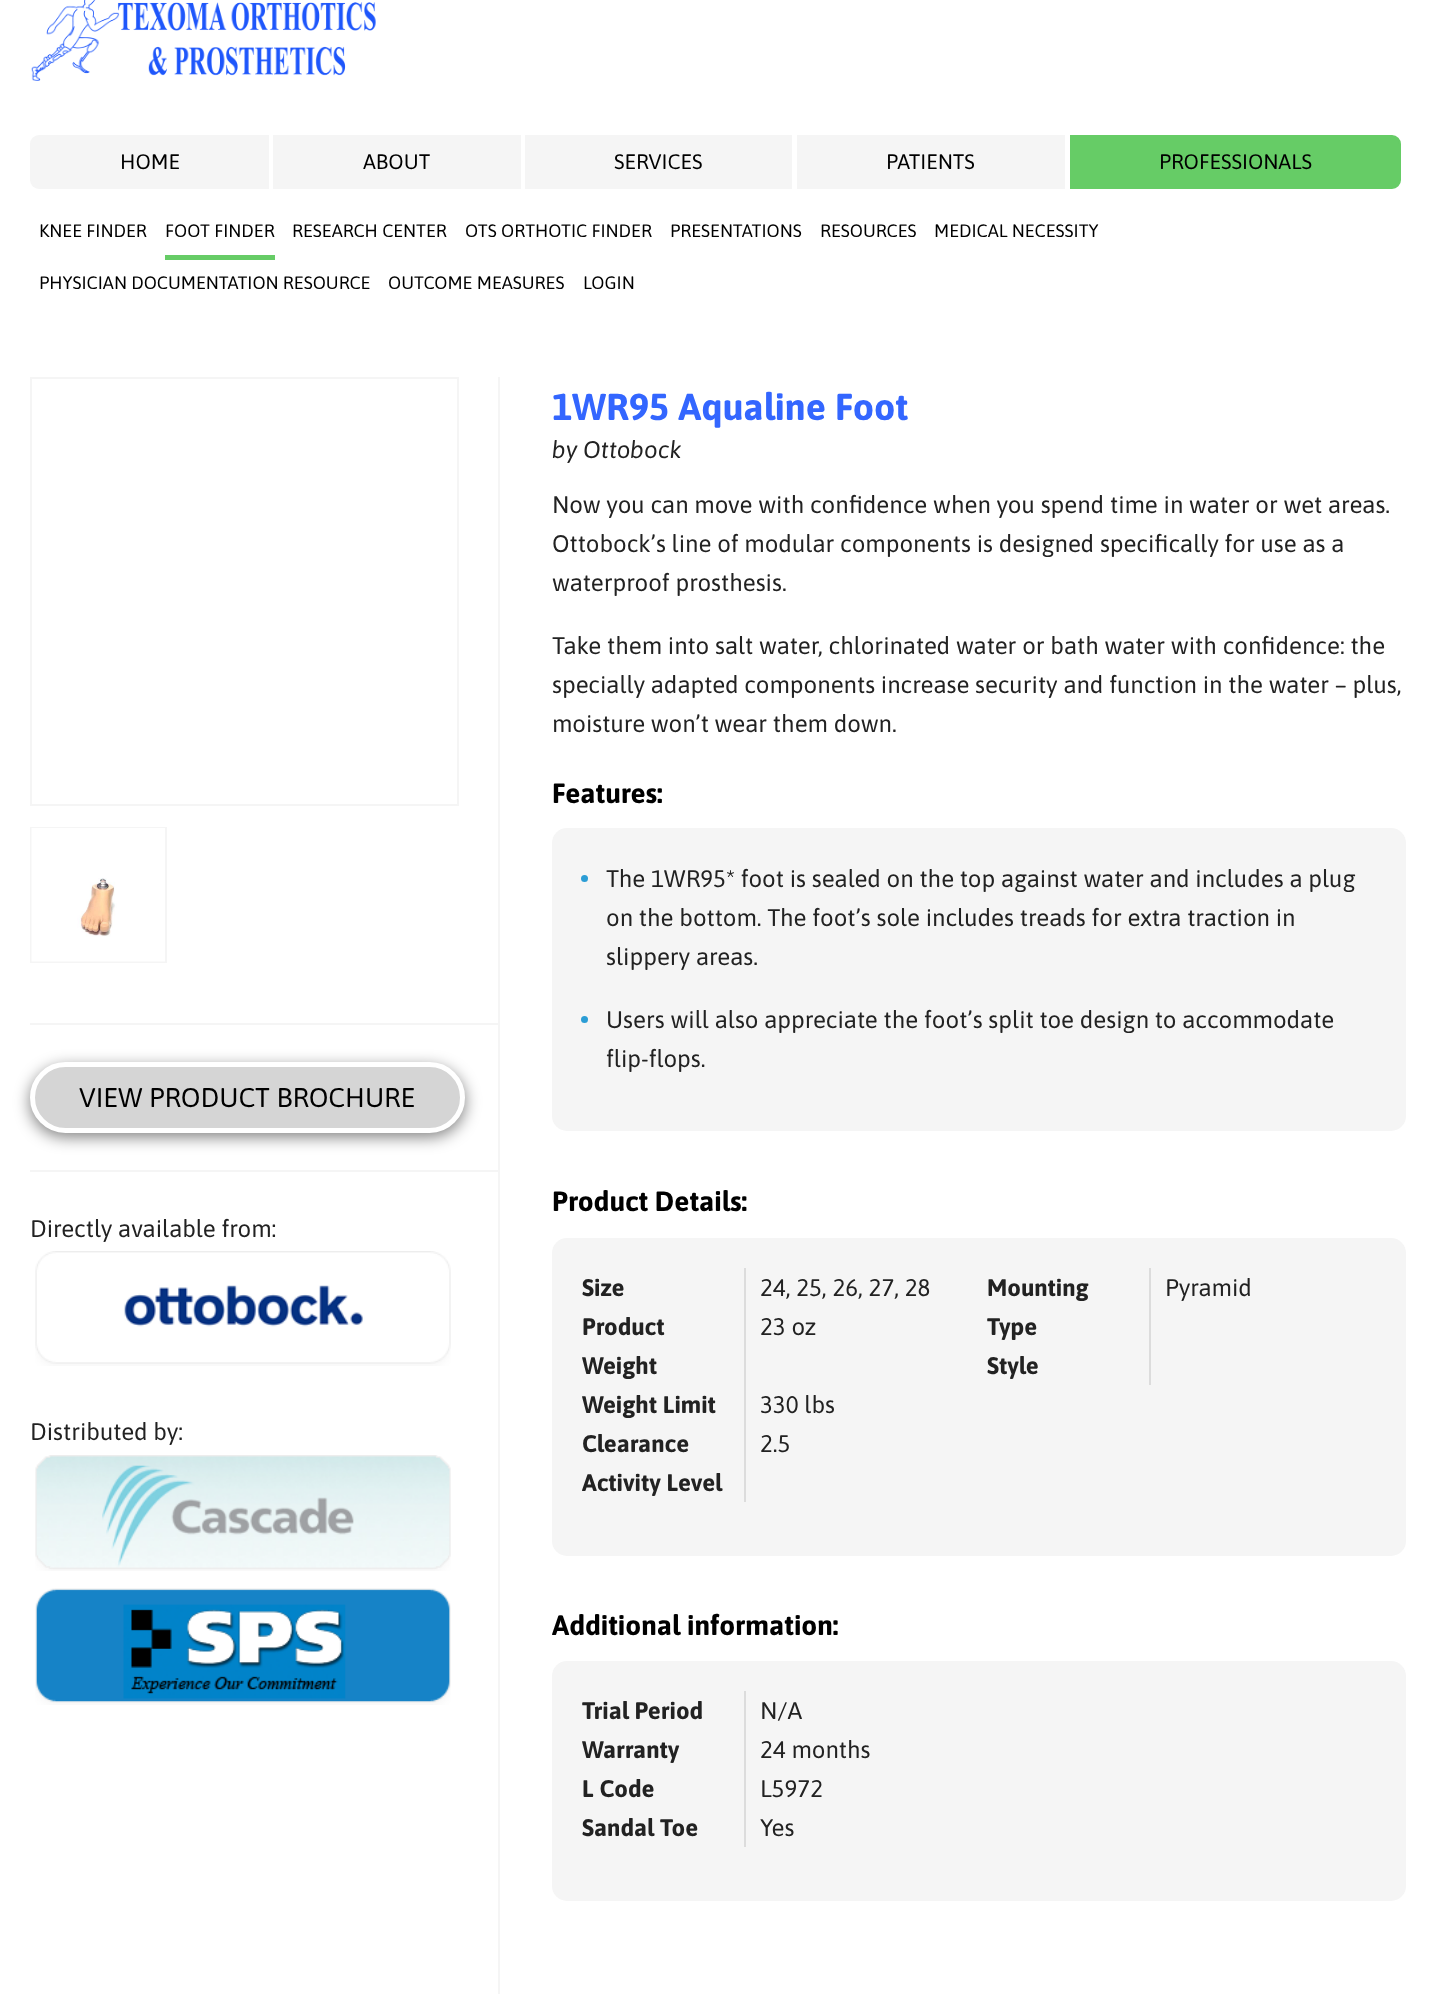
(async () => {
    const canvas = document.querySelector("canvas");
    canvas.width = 1435;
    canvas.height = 1994;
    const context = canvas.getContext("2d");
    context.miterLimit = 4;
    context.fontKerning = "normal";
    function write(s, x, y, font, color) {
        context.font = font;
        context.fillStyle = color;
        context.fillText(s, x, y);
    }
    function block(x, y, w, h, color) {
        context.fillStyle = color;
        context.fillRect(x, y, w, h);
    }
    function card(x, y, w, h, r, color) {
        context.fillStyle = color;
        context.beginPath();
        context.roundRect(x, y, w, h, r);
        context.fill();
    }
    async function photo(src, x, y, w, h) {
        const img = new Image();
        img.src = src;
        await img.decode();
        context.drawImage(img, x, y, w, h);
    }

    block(0, 0, 1435, 1994, "rgb(255, 255, 255)");
    await photo("media/1.png", 31, 0, 345, 81);
    context.fillStyle = "rgb(102, 204, 102)";
    context.beginPath();
    context.roundRect(1071, 136, 329, 52, [0, 8, 8, 0]);
    context.fill();
    context.strokeStyle = "rgb(102, 204, 102)";
    context.lineWidth = 2;
    context.stroke();
    write("PROFESSIONALS", 1159, 169, "21px Asap", "rgb(0, 0, 0)");
    write("KNEE FINDER", 39, 237, "18px Asap", "rgb(0, 0, 0)");
    block(165, 255, 110, 5, "rgb(102, 204, 102)");
    write("FOOT FINDER", 165, 237, "18px Asap", "rgb(0, 0, 0)");
    write("RESEARCH CENTER", 292, 237, "18px Asap", "rgb(0, 0, 0)");
    write("OTS ORTHOTIC FINDER", 465, 237, "18px Asap", "rgb(0, 0, 0)");
    write("PRESENTATIONS", 670, 237, "18px Asap", "rgb(0, 0, 0)");
    write("RESOURCES", 820, 237, "18px Asap", "rgb(0, 0, 0)");
    write("MEDICAL NECESSITY", 934, 237, "18px Asap", "rgb(0, 0, 0)");
    write("PHYSICIAN DOCUMENTATION RESOURCE", 39, 289, "18px Asap", "rgb(0, 0, 0)");
    write("OUTCOME MEASURES", 388, 289, "18px Asap", "rgb(0, 0, 0)");
    write("LOGIN", 583, 289, "18px Asap", "rgb(0, 0, 0)");
    context.fillStyle = "rgb(245, 245, 245)";
    context.beginPath();
    context.roundRect(30, 135, 239, 54, [9, 0, 0, 9]);
    context.fill();
    write("HOME", 120, 169, "21px Asap", "rgb(0, 0, 0)");
    block(273, 135, 248, 54, "rgb(245, 245, 245)");
    write("ABOUT", 363, 169, "21px Asap", "rgb(0, 0, 0)");
    block(525, 135, 267, 54, "rgb(245, 245, 245)");
    write("SERVICES", 614, 169, "21px Asap", "rgb(0, 0, 0)");
    block(797, 135, 268, 54, "rgb(245, 245, 245)");
    write("PATIENTS", 886, 169, "21px Asap", "rgb(0, 0, 0)");
    context.strokeStyle = "rgb(245, 245, 245)";
    context.strokeRect(31, 378, 427, 427);
    context.strokeRect(31, 828, 135, 134);
    await photo("media/2.png", 31, 828, 134, 134);
    block(498, 377, 2, 1617, "rgb(245, 245, 245)");
    block(30, 1023, 470, 2, "rgb(245, 245, 245)");
    block(30, 1170, 470, 2, "rgb(245, 245, 245)");
    context.fillStyle = "rgba(0, 0, 0, 0.5)";
    context.filter = "blur(8px)";
    context.beginPath();
    context.roundRect(30, 1067, 435, 70, 35);
    context.fill();
    context.filter = "none";
    context.fillStyle = "rgb(213, 213, 213)";
    context.beginPath();
    context.roundRect(32.5, 1064.5, 430, 66, 33);
    context.fill();
    context.strokeStyle = "rgb(255, 255, 255)";
    context.lineWidth = 5;
    context.stroke();
    write("VIEW PRODUCT BROCHURE", 79, 1107, "27px Asap", "rgb(0, 0, 0)");
    write("Directly available from:", 30, 1237, "24px Asap", "rgb(34, 34, 34)");
    await photo("media/3.png", 35, 1251, 416, 115);
    write("Distributed by:", 30, 1440, "24px Asap", "rgb(34, 34, 34)");
    await photo("media/4.png", 35, 1455, 416, 116);
    await photo("media/5.png", 35, 1588, 416, 117);
    write("1WR95 Aqualine Foot", 552, 420, "bold 37.5px Asap", "rgb(51, 102, 255)");
    write("by Ottobock", 552, 458, "italic 24px Asap", "rgb(34, 34, 34)");
    write("Now you can move with confidence when you spend time in water or wet areas.", 552, 513, "24px Asap", "rgb(34, 34, 34)");
    write("Ottobock’s line of modular components is designed specifically for use as a", 552, 552, "24px Asap", "rgb(34, 34, 34)");
    write("waterproof prosthesis.", 552, 591, "24px Asap", "rgb(34, 34, 34)");
    write("Take them into salt water, chlorinated water or bath water with confidence: the", 552, 654, "24px Asap", "rgb(34, 34, 34)");
    write("specially adapted components increase security and function in the water – plus,", 552, 693, "24px Asap", "rgb(34, 34, 34)");
    write("moisture won’t wear them down.", 552, 732, "24px Asap", "rgb(34, 34, 34)");
    write("Features:", 552, 803, "bold 28px Asap", "rgb(0, 0, 0)");
    card(552, 828, 854, 303, 15, "rgb(245, 245, 245)");
    context.fillStyle = "rgb(43, 157, 213)";
    context.beginPath();
    context.arc(584.5, 878.5, 3.5, 0, Math.PI * 2);
    context.fill();
    write("The 1WR95* foot is sealed on the top against water and includes a plug", 606, 887, "24px Asap", "rgb(34, 34, 34)");
    write("on the bottom. The foot’s sole includes treads for extra traction in", 606, 926, "24px Asap", "rgb(34, 34, 34)");
    write("slippery areas.", 606, 965, "24px Asap", "rgb(34, 34, 34)");
    context.fillStyle = "rgb(43, 157, 213)";
    context.beginPath();
    context.arc(584.5, 1019.5, 3.5, 0, Math.PI * 2);
    context.fill();
    write("Users will also appreciate the foot’s split toe design to accommodate", 606, 1028, "24px Asap", "rgb(34, 34, 34)");
    write("flip-flops.", 606, 1067, "24px Asap", "rgb(34, 34, 34)");
    write("Product Details:", 552, 1211, "bold 28px Asap", "rgb(0, 0, 0)");
    card(552, 1238, 854, 318, 15, "rgb(245, 245, 245)");
    block(744, 1268, 2, 234, "rgb(220, 220, 220)");
    write("Size", 582, 1296, "bold 24px Asap", "rgb(34, 34, 34)");
    write("24, 25, 26, 27, 28", 760, 1296, "24px Asap", "rgb(34, 34, 34)");
    write("Product", 582, 1335, "bold 24px Asap", "rgb(34, 34, 34)");
    write("Weight", 582, 1374, "bold 24px Asap", "rgb(34, 34, 34)");
    write("23 oz", 760, 1335, "24px Asap", "rgb(34, 34, 34)");
    write("Weight Limit", 582, 1413, "bold 24px Asap", "rgb(34, 34, 34)");
    write("330 lbs", 760, 1413, "24px Asap", "rgb(34, 34, 34)");
    write("Clearance", 582, 1452, "bold 24px Asap", "rgb(34, 34, 34)");
    write("2.5", 760, 1452, "24px Asap", "rgb(34, 34, 34)");
    write("Activity Level", 582, 1491, "bold 24px Asap", "rgb(34, 34, 34)");
    block(1149, 1268, 2, 117, "rgb(220, 220, 220)");
    write("Mounting", 987, 1296, "bold 24px Asap", "rgb(34, 34, 34)");
    write("Type", 987, 1335, "bold 24px Asap", "rgb(34, 34, 34)");
    write("Pyramid", 1165, 1296, "24px Asap", "rgb(34, 34, 34)");
    write("Style", 987, 1374, "bold 24px Asap", "rgb(34, 34, 34)");
    write("Additional information:", 552, 1635, "bold 28px Asap", "rgb(0, 0, 0)");
    card(552, 1661, 854, 240, 15, "rgb(245, 245, 245)");
    block(744, 1691, 2, 156, "rgb(220, 220, 220)");
    write("Trial Period", 582, 1719, "bold 24px Asap", "rgb(34, 34, 34)");
    write("N/A", 760, 1719, "24px Asap", "rgb(34, 34, 34)");
    write("Warranty", 582, 1758, "bold 24px Asap", "rgb(34, 34, 34)");
    write("24 months", 760, 1758, "24px Asap", "rgb(34, 34, 34)");
    write("L Code", 582, 1797, "bold 24px Asap", "rgb(34, 34, 34)");
    write("L5972", 760, 1797, "24px Asap", "rgb(34, 34, 34)");
    write("Sandal Toe", 582, 1836, "bold 24px Asap", "rgb(34, 34, 34)");
    write("Yes", 760, 1836, "24px Asap", "rgb(34, 34, 34)");
})();
